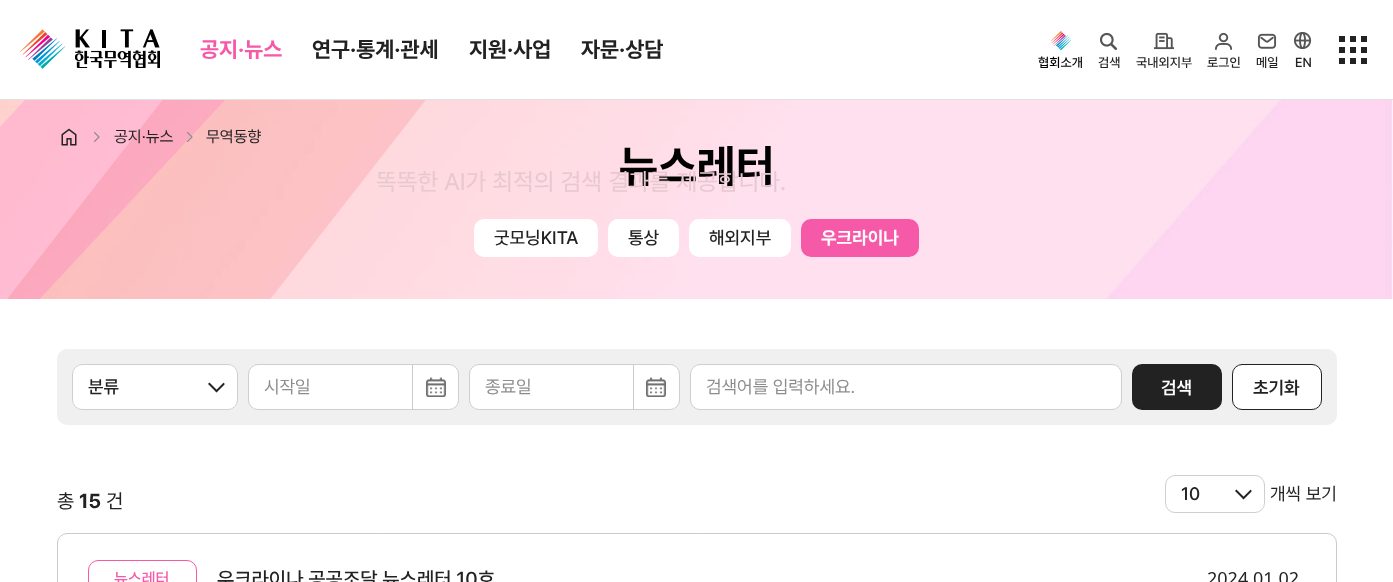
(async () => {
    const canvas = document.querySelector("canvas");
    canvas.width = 1393;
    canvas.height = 582;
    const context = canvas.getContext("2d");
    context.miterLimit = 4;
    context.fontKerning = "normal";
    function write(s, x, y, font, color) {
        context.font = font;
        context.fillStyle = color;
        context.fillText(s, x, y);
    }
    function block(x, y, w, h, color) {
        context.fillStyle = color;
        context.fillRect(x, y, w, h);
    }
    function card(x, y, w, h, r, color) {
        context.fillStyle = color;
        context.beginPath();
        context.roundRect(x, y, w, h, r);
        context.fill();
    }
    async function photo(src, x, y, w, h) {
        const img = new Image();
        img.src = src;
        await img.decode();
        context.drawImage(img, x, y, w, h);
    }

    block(0, 0, 1393, 582, "rgb(255, 255, 255)");
    block(0, 99, 1393, 1, "rgb(225, 225, 225)");
    await photo("media/1.png", 20, 29, 140, 40);
    write("공지·뉴스", 200, 57, "bold 22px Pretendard", "rgb(246, 89, 167)");
    write("연구·통계·관세", 312, 57, "bold 22px Pretendard", "rgb(34, 34, 34)");
    write("지원·사업", 469, 57, "bold 22px Pretendard", "rgb(34, 34, 34)");
    write("자문·상담", 581, 57, "bold 22px Pretendard", "rgb(34, 34, 34)");
    await photo("media/2.png", 1051, 31, 20, 20);
    write("협회소개", 1038, 67, "500 13px Pretendard", "rgb(0, 0, 0)");
    await photo("media/3.png", 1100, 32, 18, 18);
    write("검색", 1098, 67, "500 13px Pretendard", "rgb(34, 34, 34)");
    await photo("media/4.png", 1154, 32, 20, 18);
    write("국내외지부", 1136, 67, "500 13px Pretendard", "rgb(34, 34, 34)");
    await photo("media/5.png", 1215, 32, 18, 18);
    write("로그인", 1207, 67, "500 13px Pretendard", "rgb(34, 34, 34)");
    await photo("media/6.png", 1257, 33, 20, 16);
    write("메일", 1256, 67, "500 13px Pretendard", "rgb(34, 34, 34)");
    await photo("media/7.png", 1293, 32, 19, 18);
    write("EN", 1295, 67, "500 13px Pretendard", "rgb(34, 34, 34)");
    await photo("media/8.png", 1339, 36, 28, 28);
    await photo("media/9.png", 0, 100, 1393, 199);
    context.save();
    context.beginPath();
    context.rect(0, 100, 1393, 199);
    context.clip();
    context.fillStyle = "rgba(255, 55, 223, 0.15)";
    context.beginPath();
    context.moveTo(25, 100);
    context.lineTo(225, 100);
    context.lineTo(-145, 497);
    context.lineTo(-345, 497);
    context.closePath();
    context.fill();
    context.fillStyle = "rgba(224, 0, 0, 0.1)";
    context.beginPath();
    context.moveTo(200, 52);
    context.lineTo(450, 69);
    context.lineTo(140, 466);
    context.lineTo(-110, 449);
    context.closePath();
    context.fill();
    context.restore();
    await photo("media/10.png", 61, 128, 16, 18);
    context.beginPath();
    context.moveTo(94.5, 141.5);
    context.lineTo(99, 137);
    context.lineTo(94.5, 132.5);
    context.strokeStyle = "rgb(141, 141, 141)";
    context.lineWidth = 1.1;
    context.lineCap = "round";
    context.lineJoin = "round";
    context.stroke();
    write("공지·뉴스", 114, 142, "16px Pretendard", "rgb(34, 34, 34)");
    context.beginPath();
    context.moveTo(187.5, 141.5);
    context.lineTo(192, 137);
    context.lineTo(187.5, 132.5);
    context.stroke();
    write("무역동향", 206, 142, "16px Pretendard", "rgb(34, 34, 34)");
    write("뉴스레터", 619, 182, "bold 45px Pretendard", "rgb(0, 0, 0)");
    card(474, 219, 124, 38, 10, "rgb(255, 255, 255)");
    write("굿모닝KITA", 494, 244, "500 18px Pretendard", "rgb(34, 34, 34)");
    card(608, 219, 71, 38, 10, "rgb(255, 255, 255)");
    write("통상", 628, 244, "500 18px Pretendard", "rgb(34, 34, 34)");
    card(689, 219, 102, 38, 10, "rgb(255, 255, 255)");
    write("해외지부", 709, 244, "500 18px Pretendard", "rgb(34, 34, 34)");
    card(801, 219, 118, 38, 10, "rgb(246, 89, 167)");
    write("우크라이나", 821, 244, "bold 18px Pretendard", "rgb(255, 255, 255)");
    card(57, 349, 1280, 76, 10, "rgb(240, 240, 240)");
    card(72, 364, 166, 46, 10, "rgb(255, 255, 255)");
    await photo("media/11.png", 208, 382, 17, 11);
    context.beginPath();
    context.roundRect(72.5, 364.5, 165, 45, 9.5);
    context.strokeStyle = "rgb(207, 207, 207)";
    context.lineWidth = 1;
    context.lineJoin = "miter";
    context.stroke();
    write("분류", 88, 393, "500 18px Pretendard", "rgb(34, 34, 34)");
    context.fillStyle = "rgb(255, 255, 255)";
    context.beginPath();
    context.roundRect(248.5, 364.5, 210, 45, 9.5);
    context.fill();
    context.stroke();
    write("시작일", 264, 393, "18px Pretendard", "rgb(141, 141, 141)");
    await photo("media/12.png", 426, 377, 20, 20);
    block(412, 364, 1, 46, "rgb(202, 202, 202)");
    context.fillStyle = "rgb(255, 255, 255)";
    context.beginPath();
    context.roundRect(469.5, 364.5, 210, 45, 9.5);
    context.fill();
    context.stroke();
    write("종료일", 485, 393, "18px Pretendard", "rgb(141, 141, 141)");
    await photo("media/12.png", 646, 377, 20, 20);
    block(633, 364, 1, 46, "rgb(202, 202, 202)");
    context.fillStyle = "rgb(255, 255, 255)";
    context.beginPath();
    context.roundRect(690.5, 364.5, 431, 45, 9.5);
    context.fill();
    context.stroke();
    write("검색어를 입력하세요.", 706, 393, "18px Pretendard", "rgb(141, 141, 141)");
    card(1132, 364, 90, 46, 10, "rgb(34, 34, 34)");
    write("검색", 1161, 394, "600 18px Pretendard", "rgb(255, 255, 255)");
    context.beginPath();
    context.roundRect(1232.5, 364.5, 89, 45, 9.5);
    context.fill();
    context.strokeStyle = "rgb(34, 34, 34)";
    context.stroke();
    write("초기화", 1253, 394, "600 18px Pretendard", "rgb(34, 34, 34)");
    write("총", 57, 508, "20px Pretendard", "rgb(34, 34, 34)");
    write("15", 79, 508, "bold 20px Pretendard", "rgb(34, 34, 34)");
    write("건", 106, 508, "20px Pretendard", "rgb(34, 34, 34)");
    await photo("media/11.png", 1235, 489, 17, 11);
    context.beginPath();
    context.roundRect(1165.5, 475.5, 99, 37, 9.5);
    context.strokeStyle = "rgb(207, 207, 207)";
    context.stroke();
    write("10", 1181, 500, "500 18px Pretendard", "rgb(34, 34, 34)");
    write("개씩 보기", 1270, 500, "18px Pretendard", "rgb(34, 34, 34)");
    context.beginPath();
    context.roundRect(57.5, 533.5, 1279, 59, 9.5);
    context.strokeStyle = "rgb(202, 202, 202)";
    context.stroke();
    context.beginPath();
    context.roundRect(88.5, 560.5, 108, 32, 9.5);
    context.strokeStyle = "rgb(246, 89, 167)";
    context.stroke();
    write("뉴스레터", 114, 584, "500 16px Pretendard", "rgb(246, 89, 167)");
    write("우크라이나 공공조달 뉴스레터 10호", 217, 586, "500 20px Pretendard", "rgb(34, 34, 34)");
    write("2024.01.02", 1207, 585, "18px Noto Sans", "rgb(34, 34, 34)");
    write("똑똑한 AI가 최적의 검색 결과를 제공합니다.", 376, 190, "24px Pretendard", "rgb(231, 200, 208)");
})();
